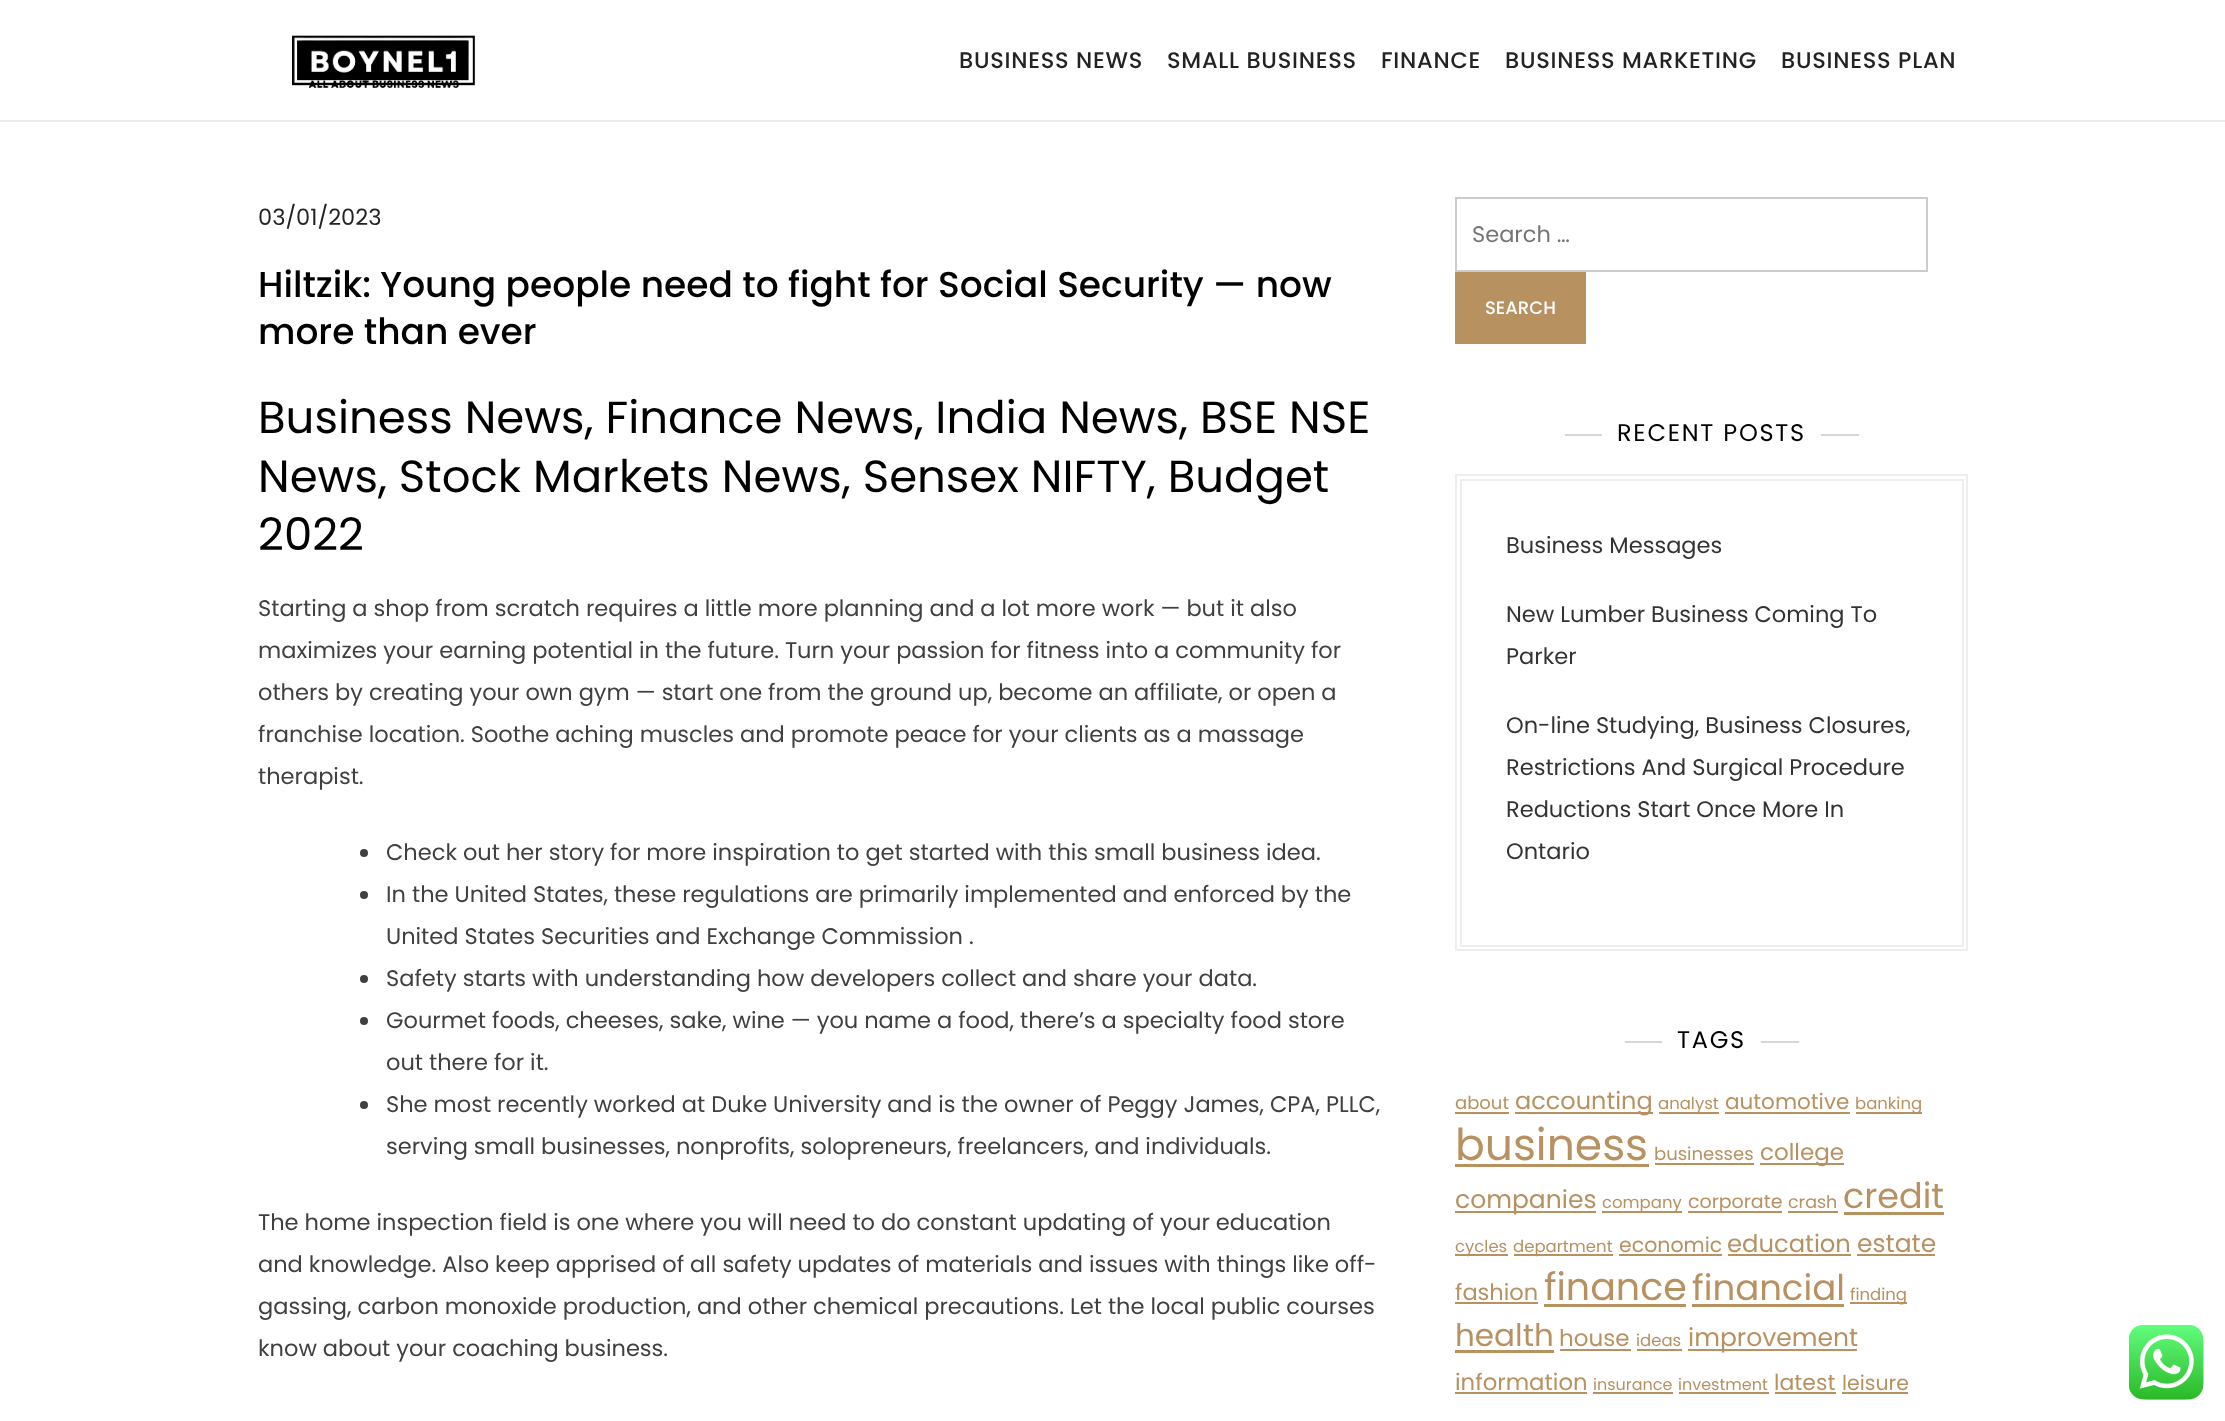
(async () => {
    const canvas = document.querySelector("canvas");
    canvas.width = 2225;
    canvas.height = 1421;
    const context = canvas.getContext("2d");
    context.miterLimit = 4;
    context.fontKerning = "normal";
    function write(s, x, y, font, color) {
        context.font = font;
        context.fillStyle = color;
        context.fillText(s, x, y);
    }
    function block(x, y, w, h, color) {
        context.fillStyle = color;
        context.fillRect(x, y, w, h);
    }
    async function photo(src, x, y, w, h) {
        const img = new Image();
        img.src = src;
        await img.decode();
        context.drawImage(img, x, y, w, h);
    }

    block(0, 0, 2225, 1421, "rgb(255, 255, 255)");
    block(0, 120, 2225, 2, "rgb(236, 236, 236)");
    await photo("media/1.png", 292, 35, 184, 53);
    context.letterSpacing = "0.75px";
    write("BUSINESS NEWS", 959, 68, "500 22.5px Poppins", "rgb(35, 35, 35)");
    write("SMALL BUSINESS", 1167, 68, "500 22.5px Poppins", "rgb(35, 35, 35)");
    write("FINANCE", 1381, 68, "500 22.5px Poppins", "rgb(35, 35, 35)");
    write("BUSINESS MARKETING", 1505, 68, "500 22.5px Poppins", "rgb(35, 35, 35)");
    write("BUSINESS PLAN", 1781, 68, "500 22.5px Poppins", "rgb(35, 35, 35)");
    context.letterSpacing = "0px";
    write("03/01/2023", 258, 225, "22.5px Poppins", "rgb(35, 35, 35)");
    write("Hiltzik: Young people need to fight for Social Security — now", 258, 297, "500 36px Poppins", "rgb(0, 0, 0)");
    write("more than ever", 258, 344, "500 36px Poppins", "rgb(0, 0, 0)");
    write("Business News, Finance News, India News, BSE NSE", 258, 433, "45px Poppins", "rgb(0, 0, 0)");
    write("News, Stock Markets News, Sensex NIFTY, Budget", 258, 492, "45px Poppins", "rgb(0, 0, 0)");
    write("2022", 258, 550, "45px Poppins", "rgb(0, 0, 0)");
    write("Starting a shop from scratch requires a little more planning and a lot more work — but it also", 258, 616, "22.5px Poppins", "rgb(64, 64, 64)");
    write("maximizes your earning potential in the future. Turn your passion for fitness into a community for", 258, 658, "22.5px Poppins", "rgb(64, 64, 64)");
    write("others by creating your own gym — start one from the ground up, become an affiliate, or open a", 258, 700, "22.5px Poppins", "rgb(64, 64, 64)");
    write("franchise location. Soothe aching muscles and promote peace for your clients as a massage", 258, 742, "22.5px Poppins", "rgb(64, 64, 64)");
    write("therapist.", 258, 784, "22.5px Poppins", "rgb(64, 64, 64)");
    context.beginPath();
    context.arc(364, 853, 4, 0, Math.PI * 2);
    context.fill();
    write("Check out her story for more inspiration to get started with this small business idea.", 386, 860, "22.5px Poppins", "rgb(64, 64, 64)");
    context.beginPath();
    context.arc(364, 895, 4, 0, Math.PI * 2);
    context.fill();
    write("In the United States, these regulations are primarily implemented and enforced by the", 386, 902, "22.5px Poppins", "rgb(64, 64, 64)");
    write("United States Securities and Exchange Commission .", 386, 944, "22.5px Poppins", "rgb(64, 64, 64)");
    context.beginPath();
    context.arc(364, 979, 4, 0, Math.PI * 2);
    context.fill();
    write("Safety starts with understanding how developers collect and share your data.", 386, 986, "22.5px Poppins", "rgb(64, 64, 64)");
    context.beginPath();
    context.arc(364, 1021, 4, 0, Math.PI * 2);
    context.fill();
    write("Gourmet foods, cheeses, sake, wine — you name a food, there’s a specialty food store", 386, 1028, "22.5px Poppins", "rgb(64, 64, 64)");
    write("out there for it.", 386, 1070, "22.5px Poppins", "rgb(64, 64, 64)");
    context.beginPath();
    context.arc(364, 1105, 4, 0, Math.PI * 2);
    context.fill();
    write("She most recently worked at Duke University and is the owner of Peggy James, CPA, PLLC,", 386, 1112, "22.5px Poppins", "rgb(64, 64, 64)");
    write("serving small businesses, nonprofits, solopreneurs, freelancers, and individuals.", 386, 1154, "22.5px Poppins", "rgb(64, 64, 64)");
    write("The home inspection field is one where you will need to do constant updating of your education", 258, 1230, "22.5px Poppins", "rgb(64, 64, 64)");
    write("and knowledge. Also keep apprised of all safety updates of materials and issues with things like off-", 258, 1272, "22.5px Poppins", "rgb(64, 64, 64)");
    write("gassing, carbon monoxide production, and other chemical precautions. Let the local public courses", 258, 1314, "22.5px Poppins", "rgb(64, 64, 64)");
    write("know about your coaching business.", 258, 1356, "22.5px Poppins", "rgb(64, 64, 64)");
    context.strokeStyle = "rgb(204, 204, 204)";
    context.lineWidth = 2;
    context.strokeRect(1456, 198, 471, 73);
    write("Search …", 1472, 242, "22.5px Poppins", "rgb(117, 117, 117)");
    block(1455, 272, 131, 72, "rgb(184, 145, 97)");
    write("SEARCH", 1485, 314, "500 18px Poppins", "rgb(255, 255, 255)");
    block(1565, 434, 37, 2, "rgb(214, 214, 214)");
    context.letterSpacing = "1.75px";
    write("RECENT POSTS", 1617, 441, "24px Poppins", "rgb(0, 0, 0)");
    block(1821, 434, 38, 2, "rgb(214, 214, 214)");
    context.strokeStyle = "rgb(238, 238, 238)";
    context.strokeRect(1456, 475, 511, 475);
    context.strokeRect(1461, 480, 502, 466);
    context.letterSpacing = "0px";
    write("Business Messages", 1506, 553, "22.5px Poppins", "rgb(51, 51, 51)");
    write("New Lumber Business Coming To", 1506, 622, "22.5px Poppins", "rgb(51, 51, 51)");
    write("Parker", 1506, 664, "22.5px Poppins", "rgb(51, 51, 51)");
    write("On-line Studying, Business Closures,", 1506, 733, "22.5px Poppins", "rgb(51, 51, 51)");
    write("Restrictions And Surgical Procedure", 1506, 775, "22.5px Poppins", "rgb(51, 51, 51)");
    write("Reductions Start Once More In", 1506, 817, "22.5px Poppins", "rgb(51, 51, 51)");
    write("Ontario", 1506, 859, "22.5px Poppins", "rgb(51, 51, 51)");
    block(1625, 1041, 37, 2, "rgb(214, 214, 214)");
    context.letterSpacing = "1.75px";
    write("TAGS", 1677, 1048, "24px Poppins", "rgb(0, 0, 0)");
    block(1761, 1041, 38, 2, "rgb(214, 214, 214)");
    context.letterSpacing = "0px";
    write("about", 1455, 1109, "18px Poppins", "rgb(184, 145, 97)");
    block(1455, 1112, 54, 2, "rgb(184, 145, 97)");
    block(1515, 1112, 138, 2, "rgb(184, 145, 97)");
    write("accounting", 1515, 1109, "24px Poppins", "rgb(184, 145, 97)");
    block(1659, 1112, 60, 2, "rgb(184, 145, 97)");
    write("analyst", 1658, 1109, "16.5px Poppins", "rgb(184, 145, 97)");
    write("automotive", 1725, 1109, "21.5px Poppins", "rgb(184, 145, 97)");
    block(1725, 1112, 125, 2, "rgb(184, 145, 97)");
    block(1856, 1112, 66, 2, "rgb(184, 145, 97)");
    write("banking", 1855, 1109, "16.5px Poppins", "rgb(184, 145, 97)");
    write("business", 1455, 1160, "44px Poppins", "rgb(184, 145, 97)");
    block(1455, 1164, 194, 3, "rgb(184, 145, 97)");
    write("businesses", 1654, 1160, "18px Poppins", "rgb(184, 145, 97)");
    block(1655, 1163, 99, 2, "rgb(184, 145, 97)");
    block(1760, 1163, 84, 2, "rgb(184, 145, 97)");
    write("college", 1760, 1160, "23px Poppins", "rgb(184, 145, 97)");
    block(1455, 1211, 141, 2, "rgb(184, 145, 97)");
    write("companies", 1455, 1208, "25px Poppins", "rgb(184, 145, 97)");
    block(1602, 1211, 80, 2, "rgb(184, 145, 97)");
    write("company", 1602, 1208, "16.5px Poppins", "rgb(184, 145, 97)");
    block(1688, 1211, 94, 2, "rgb(184, 145, 97)");
    write("corporate", 1688, 1208, "19px Poppins", "rgb(184, 145, 97)");
    write("crash", 1788, 1208, "17.5px Poppins", "rgb(184, 145, 97)");
    block(1788, 1211, 50, 2, "rgb(184, 145, 97)");
    write("credit", 1843, 1208, "35px Poppins", "rgb(184, 145, 97)");
    block(1844, 1212, 100, 3, "rgb(184, 145, 97)");
    block(1455, 1254, 53, 2, "rgb(184, 145, 97)");
    write("cycles", 1455, 1252, "16.5px Poppins", "rgb(184, 145, 97)");
    block(1514, 1254, 99, 2, "rgb(184, 145, 97)");
    write("department", 1513, 1252, "16.5px Poppins", "rgb(184, 145, 97)");
    write("economic", 1619, 1252, "20.5px Poppins", "rgb(184, 145, 97)");
    block(1619, 1254, 103, 2, "rgb(184, 145, 97)");
    write("education", 1727, 1252, "24.25px Poppins", "rgb(184, 145, 97)");
    block(1728, 1254, 123, 2, "rgb(184, 145, 97)");
    write("estate", 1857, 1252, "25px Poppins", "rgb(184, 145, 97)");
    block(1857, 1254, 78, 2, "rgb(184, 145, 97)");
    write("fashion", 1455, 1300, "22.5px Poppins", "rgb(184, 145, 97)");
    block(1455, 1302, 83, 2, "rgb(184, 145, 97)");
    write("finance", 1544, 1300, "38px Poppins", "rgb(184, 145, 97)");
    block(1544, 1304, 142, 3, "rgb(184, 145, 97)");
    write("financial", 1692, 1300, "35.5px Poppins", "rgb(184, 145, 97)");
    block(1692, 1304, 152, 3, "rgb(184, 145, 97)");
    block(1850, 1302, 57, 2, "rgb(184, 145, 97)");
    write("finding", 1850, 1300, "16.5px Poppins", "rgb(184, 145, 97)");
    write("health", 1455, 1346, "31px Poppins", "rgb(184, 145, 97)");
    block(1455, 1350, 99, 3, "rgb(184, 145, 97)");
    write("house", 1559, 1346, "23px Poppins", "rgb(184, 145, 97)");
    block(1560, 1349, 71, 2, "rgb(184, 145, 97)");
    write("ideas", 1636, 1346, "16.5px Poppins", "rgb(184, 145, 97)");
    block(1637, 1349, 45, 2, "rgb(184, 145, 97)");
    block(1688, 1349, 169, 2, "rgb(184, 145, 97)");
    write("improvement", 1688, 1346, "25px Poppins", "rgb(184, 145, 97)");
    write("information", 1455, 1390, "22.75px Poppins", "rgb(184, 145, 97)");
    block(1455, 1392, 132, 2, "rgb(184, 145, 97)");
    write("insurance", 1593, 1390, "16px Poppins", "rgb(184, 145, 97)");
    block(1593, 1392, 80, 2, "rgb(184, 145, 97)");
    write("investment", 1678, 1390, "16px Poppins", "rgb(184, 145, 97)");
    block(1679, 1392, 90, 2, "rgb(184, 145, 97)");
    write("latest", 1774, 1390, "22px Poppins", "rgb(184, 145, 97)");
    block(1775, 1392, 61, 2, "rgb(184, 145, 97)");
    write("leisure", 1842, 1390, "20.5px Poppins", "rgb(184, 145, 97)");
    block(1842, 1392, 66, 2, "rgb(184, 145, 97)");
    await photo("media/2.png", 2129, 1325, 75, 75);
})();
